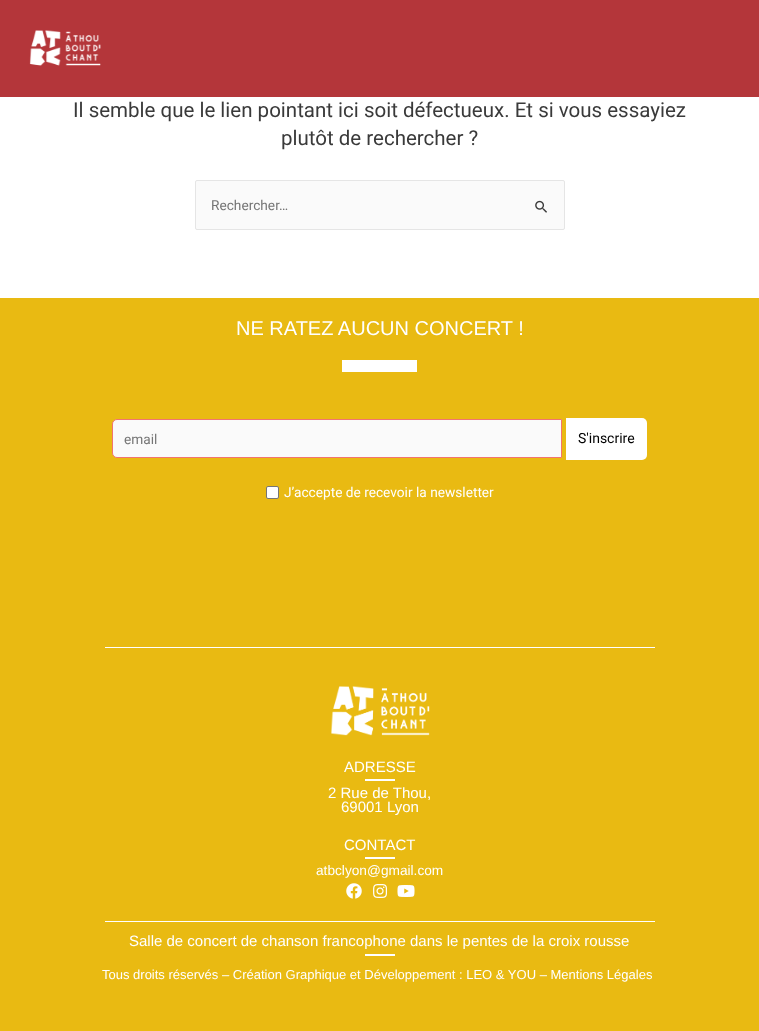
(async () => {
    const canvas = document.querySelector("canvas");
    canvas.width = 759;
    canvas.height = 1031;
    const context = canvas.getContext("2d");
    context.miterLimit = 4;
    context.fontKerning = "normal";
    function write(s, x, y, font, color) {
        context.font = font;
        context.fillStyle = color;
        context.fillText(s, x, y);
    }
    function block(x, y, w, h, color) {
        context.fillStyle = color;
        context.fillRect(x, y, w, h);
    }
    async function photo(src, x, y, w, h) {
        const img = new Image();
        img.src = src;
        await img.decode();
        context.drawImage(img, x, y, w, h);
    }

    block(0, 0, 759, 1031, "rgb(255, 255, 255)");
    block(0, 0, 759, 97, "rgb(180, 54, 58)");
    await photo("media/1.png", 29, 30, 72, 36);
    write("Il semble que le lien pointant ici soit défectueux. Et si vous essayiez", 73, 117, "20.5px Roboto", "rgb(58, 58, 58)");
    write("plutôt de rechercher ?", 281, 145, "20.5px Roboto", "rgb(58, 58, 58)");
    context.fillStyle = "rgb(250, 250, 250)";
    context.beginPath();
    context.roundRect(195.5, 180.5, 369, 49, 1.5);
    context.fill();
    context.strokeStyle = "rgb(229, 229, 229)";
    context.stroke();
    write("Rechercher…", 211, 210, "13.7px Roboto", "rgb(117, 117, 117)");
    await photo("media/2.png", 535, 200, 12, 13);
    block(0, 298, 759, 733, "rgb(233, 186, 18)");
    write("NE RATEZ AUCUN CONCERT !", 236, 335, "20px Liberation Sans", "rgb(255, 255, 255)");
    block(342, 360, 75, 12, "rgb(255, 255, 255)");
    context.fillStyle = "rgb(250, 250, 250)";
    context.beginPath();
    context.roundRect(112.5, 419.5, 449, 38, [4.5, 0, 0, 4.5]);
    context.fill();
    context.strokeStyle = "rgb(242, 116, 111)";
    context.stroke();
    write("email", 124, 444, "13.7px Roboto", "rgb(117, 117, 117)");
    context.fillStyle = "rgb(255, 255, 255)";
    context.beginPath();
    context.roundRect(566, 418, 81, 42, [0, 5, 5, 0]);
    context.fill();
    write("S'inscrire", 578, 443, "14px Roboto", "rgb(0, 0, 0)");
    context.fillStyle = "rgb(255, 255, 255)";
    context.beginPath();
    context.roundRect(266.5, 486.5, 12, 12, 1.5);
    context.fill();
    context.strokeStyle = "rgb(118, 118, 118)";
    context.stroke();
    write("J’accepte de recevoir la newsletter", 284, 497, "13.7px Roboto", "rgb(255, 255, 255)");
    block(105, 647, 550, 1, "rgb(255, 255, 255)");
    await photo("media/3.png", 330, 686, 100, 50);
    write("ADRESSE", 344, 772, "15px Liberation Sans", "rgb(255, 255, 255)");
    block(365, 779, 30, 2, "rgb(255, 255, 255)");
    write("2 Rue de Thou,", 328, 798, "15px Liberation Sans", "rgb(255, 255, 255)");
    write("69001 Lyon", 341, 812, "15px Liberation Sans", "rgb(255, 255, 255)");
    write("CONTACT", 344, 850, "15px Liberation Sans", "rgb(255, 255, 255)");
    block(365, 857, 30, 2, "rgb(255, 255, 255)");
    write("atbclyon@gmail.com", 316, 875, "13.7px Liberation Sans", "rgb(255, 255, 255)");
    await photo("media/4.png", 346, 883, 16, 16);
    await photo("media/5.png", 373, 884, 15, 14);
    await photo("media/6.png", 397, 885, 18, 12);
    block(105, 921, 550, 1, "rgb(255, 255, 255)");
    write("Salle de concert de chanson francophone dans le pentes de la croix rousse", 129, 946, "15px Liberation Sans", "rgb(255, 255, 255)");
    block(365, 954, 30, 2, "rgb(255, 255, 255)");
    write("Tous droits réservés – Création Graphique et Développement : LEO & YOU – Mentions Légales", 102, 979, "13px Liberation Sans", "rgb(255, 255, 255)");
})();
